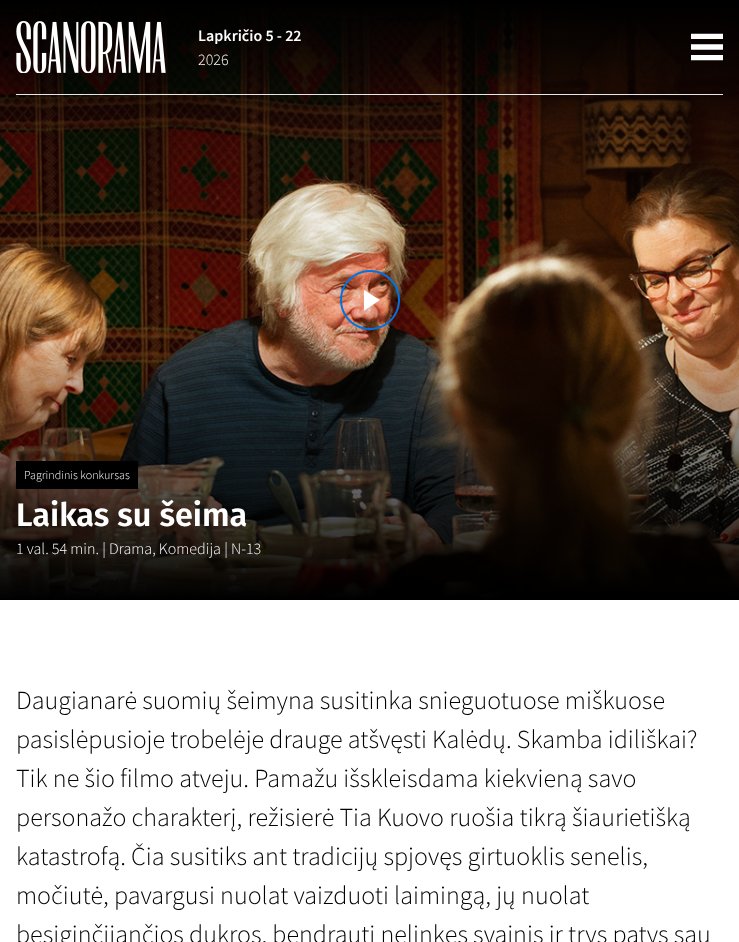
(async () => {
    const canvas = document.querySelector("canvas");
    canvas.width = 739;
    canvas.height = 942;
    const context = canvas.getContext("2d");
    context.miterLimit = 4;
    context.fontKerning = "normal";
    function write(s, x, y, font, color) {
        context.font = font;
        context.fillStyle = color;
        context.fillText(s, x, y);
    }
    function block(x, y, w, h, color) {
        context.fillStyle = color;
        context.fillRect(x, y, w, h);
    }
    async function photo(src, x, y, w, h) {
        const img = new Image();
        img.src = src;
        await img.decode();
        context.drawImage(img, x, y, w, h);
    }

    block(0, 0, 739, 942, "rgb(255, 255, 255)");
    await photo("media/1.png", 0, 0, 739, 600);
    await photo("media/2.png", 16, 21, 150, 52);
    write("Lapkričio 5 - 22", 198, 41, "600 16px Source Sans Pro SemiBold", "rgb(255, 255, 255)");
    write("2026", 198, 65, "300 16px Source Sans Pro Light", "rgb(255, 255, 255)");
    await photo("media/3.png", 691, 33, 32, 28);
    block(16, 94, 707, 1, "rgb(229, 231, 235)");
    await photo("media/4.png", 340, 270, 60, 60);
    block(16, 461, 122, 28, "rgb(0, 0, 0)");
    write("Pagrindinis konkursas", 24, 479, "300 12px Source Sans Pro Light", "rgb(255, 255, 255)");
    write("Laikas su šeima", 16, 526, "600 32.5px Fira Sans", "rgb(255, 255, 255)");
    write("1 val. 54 min. | Drama, Komedija | N-13", 16, 554, "300 16px Source Sans Pro Light", "rgb(255, 255, 255)");
    write("Daugianarė suomių šeimyna susitinka snieguotuose miškuose", 16, 709, "300 26px Source Sans Pro Light", "rgb(0, 0, 0)");
    write("pasislėpusioje trobelėje drauge atšvęsti Kalėdų. Skamba idiliškai?", 16, 748, "300 26px Source Sans Pro Light", "rgb(0, 0, 0)");
    write("Tik ne šio filmo atveju. Pamažu išskleisdama kiekvieną savo", 16, 787, "300 26px Source Sans Pro Light", "rgb(0, 0, 0)");
    write("personažo charakterį, režisierė Tia Kuovo ruošia tikrą šiaurietišką", 16, 826, "300 26px Source Sans Pro Light", "rgb(0, 0, 0)");
    write("katastrofą. Čia susitiks ant tradicijų spjovęs girtuoklis senelis,", 16, 865, "300 26px Source Sans Pro Light", "rgb(0, 0, 0)");
    write("močiutė, pavargusi nuolat vaizduoti laimingą, jų nuolat", 16, 904, "300 26px Source Sans Pro Light", "rgb(0, 0, 0)");
    write("besiginčijančios dukros, bendrauti nelinkęs svainis ir trys patys sau", 16, 943, "300 26px Source Sans Pro Light", "rgb(0, 0, 0)");
})();
